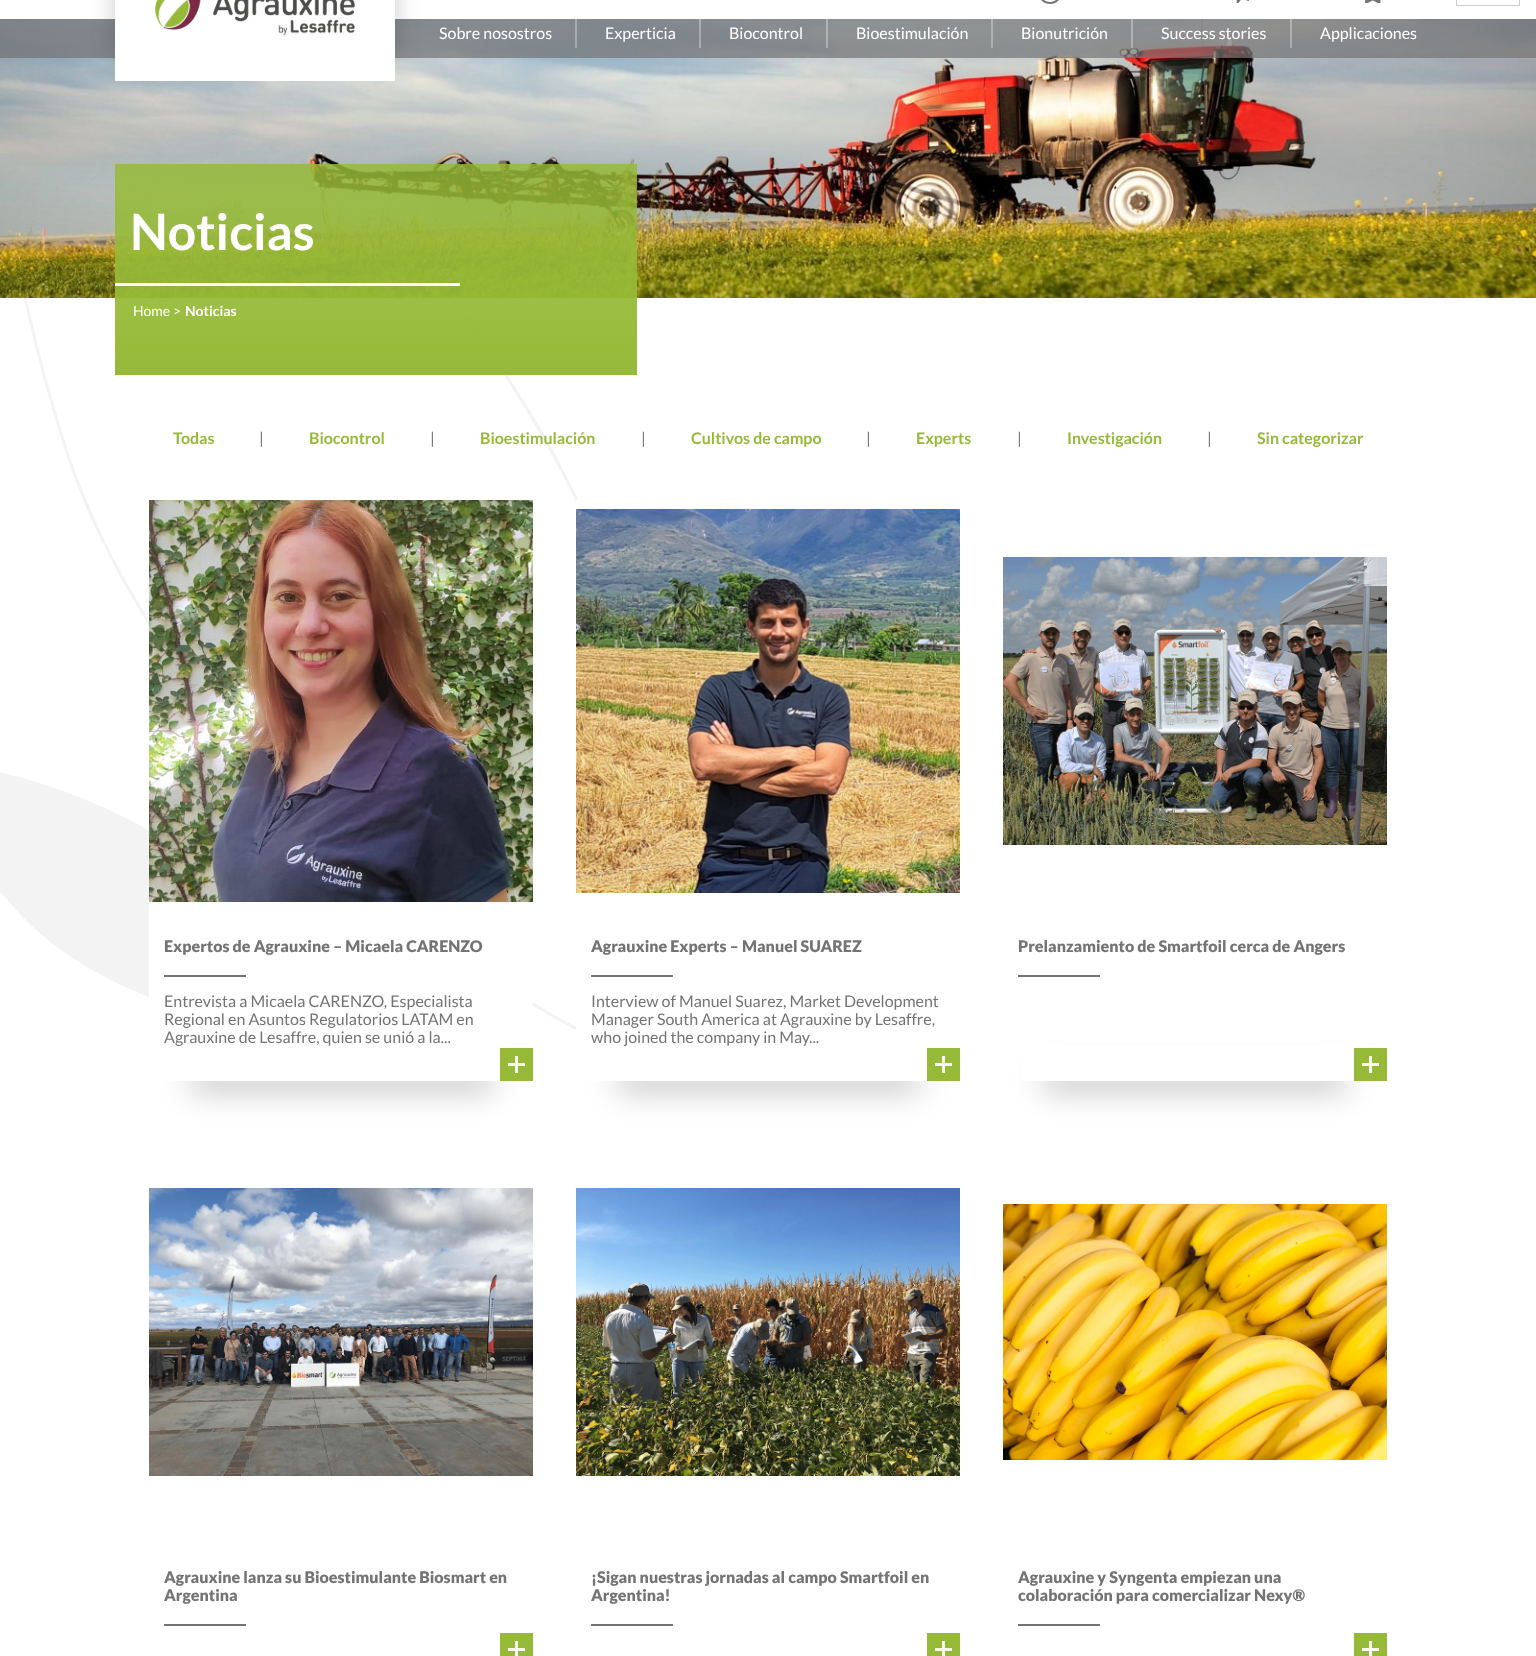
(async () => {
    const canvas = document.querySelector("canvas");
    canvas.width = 1536;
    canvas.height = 1656;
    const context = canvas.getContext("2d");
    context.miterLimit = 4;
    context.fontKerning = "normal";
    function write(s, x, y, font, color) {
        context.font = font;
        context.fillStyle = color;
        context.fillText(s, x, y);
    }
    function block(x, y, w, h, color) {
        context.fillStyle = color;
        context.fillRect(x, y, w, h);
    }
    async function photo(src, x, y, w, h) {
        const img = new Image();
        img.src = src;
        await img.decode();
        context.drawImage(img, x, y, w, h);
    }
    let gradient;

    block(0, 0, 1536, 1656, "rgb(255, 255, 255)");
    await photo("media/5.png", 0, 19, 1536, 279);
    block(0, 19, 1536, 39, "rgba(116, 116, 116, 0.7)");
    context.fillStyle = "rgba(0, 0, 0, 0.2)";
    context.filter = "blur(12.5px)";
    context.beginPath();
    context.rect(115, -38, 280, 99);
    context.fill();
    context.filter = "none";
    block(115, 0, 280, 81, "rgb(255, 255, 255)");
    await photo("media/1.png", 155, 0, 200, 35);
    await photo("media/2.png", 1041, 0, 18, 4);
    await photo("media/3.png", 1236, 0, 14, 3);
    await photo("media/4.png", 1365, 0, 16, 3);
    context.strokeStyle = "rgb(205, 205, 205)";
    context.strokeRect(1456.5, -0.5, 63, 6);
    write("Sobre nosostros", 439, 39, "16px Lato", "rgb(255, 255, 255)");
    block(575, 18, 2, 30, "rgba(255, 255, 255, 0.31)");
    write("Experticia", 605, 39, "16px Lato", "rgb(255, 255, 255)");
    block(699, 18, 2, 30, "rgba(255, 255, 255, 0.31)");
    write("Biocontrol", 729, 39, "16px Lato", "rgb(255, 255, 255)");
    block(826, 18, 2, 30, "rgba(255, 255, 255, 0.31)");
    write("Bioestimulación", 856, 39, "16px Lato", "rgb(255, 255, 255)");
    block(991, 18, 2, 30, "rgba(255, 255, 255, 0.31)");
    write("Bionutrición", 1021, 39, "16px Lato", "rgb(255, 255, 255)");
    block(1131, 18, 2, 30, "rgba(255, 255, 255, 0.31)");
    write("Success stories", 1161, 39, "16px Lato", "rgb(255, 255, 255)");
    block(1290, 18, 2, 30, "rgba(255, 255, 255, 0.31)");
    write("Applicaciones", 1320, 39, "16px Lato", "rgb(255, 255, 255)");
    await photo("media/6.png", 0, 298, 578, 732);
    gradient = context.createLinearGradient(376, 164, 376, 375);
    gradient.addColorStop(0, "rgba(150, 186, 56, 0.83)");
    gradient.addColorStop(1, "rgb(150, 186, 56)");
    context.fillStyle = gradient;
    context.fillRect(115, 164, 522, 211);
    write("Noticias", 130, 250, "bold 50px Lato", "rgb(255, 255, 255)");
    block(115, 283, 345, 3, "rgb(255, 255, 255)");
    write("Home >", 133, 316, "14px Lato", "rgb(255, 255, 255)");
    write("Noticias", 185, 316, "bold 14px Lato", "rgb(255, 255, 255)");
    write("Todas", 173, 444, "bold 16px Lato", "rgb(150, 186, 56)");
    write("|", 259, 444, "16px Lato", "rgb(116, 116, 116)");
    write("Biocontrol", 309, 444, "bold 16px Lato", "rgb(150, 186, 56)");
    write("|", 430, 444, "16px Lato", "rgb(116, 116, 116)");
    write("Bioestimulación", 480, 444, "bold 16px Lato", "rgb(150, 186, 56)");
    write("|", 641, 444, "16px Lato", "rgb(116, 116, 116)");
    write("Cultivos de campo", 691, 444, "bold 16px Lato", "rgb(150, 186, 56)");
    write("|", 866, 444, "16px Lato", "rgb(116, 116, 116)");
    write("Experts", 916, 444, "bold 16px Lato", "rgb(150, 186, 56)");
    write("|", 1017, 444, "16px Lato", "rgb(116, 116, 116)");
    write("Investigación", 1067, 444, "bold 16px Lato", "rgb(150, 186, 56)");
    write("|", 1207, 444, "16px Lato", "rgb(116, 116, 116)");
    write("Sin categorizar", 1257, 444, "bold 16px Lato", "rgb(150, 186, 56)");
    context.fillStyle = "rgba(0, 0, 0, 0.25)";
    context.filter = "blur(15px)";
    context.beginPath();
    context.roundRect(188, 1071, 307, 20, 10);
    context.fill();
    context.filter = "none";
    block(149, 902, 384, 179, "rgb(255, 255, 255)");
    await photo("media/7.png", 149, 500, 384, 402);
    write("Expertos de Agrauxine – Micaela CARENZO", 164, 952, "900 16px Lato", "rgb(116, 116, 116)");
    block(164, 975, 82, 2, "rgb(116, 116, 116)");
    write("Entrevista a Micaela CARENZO, Especialista", 164, 1007, "16px Lato", "rgb(116, 116, 116)");
    write("Regional en Asuntos Regulatorios LATAM en", 164, 1025, "16px Lato", "rgb(116, 116, 116)");
    write("Agrauxine de Lesaffre, quien se unió a la...", 164, 1043, "16px Lato", "rgb(116, 116, 116)");
    block(500, 1048, 33, 33, "rgb(150, 186, 56)");
    block(515, 1056, 3, 17, "rgb(245, 248, 235)");
    block(508, 1063, 17, 3, "rgba(255, 255, 255, 0.9)");
    context.fillStyle = "rgba(0, 0, 0, 0.25)";
    context.filter = "blur(15px)";
    context.beginPath();
    context.roundRect(615, 1071, 307, 20, 10);
    context.fill();
    context.filter = "none";
    block(576, 500, 365, 581, "rgb(255, 255, 255)");
    await photo("media/8.png", 576, 509, 384, 384);
    write("Agrauxine Experts – Manuel SUAREZ", 591, 952, "900 16px Lato", "rgb(116, 116, 116)");
    block(591, 975, 82, 2, "rgb(116, 116, 116)");
    write("Interview of Manuel Suarez, Market Development", 591, 1007, "16px Lato", "rgb(116, 116, 116)");
    write("Manager South America at Agrauxine by Lesaffre,", 591, 1025, "16px Lato", "rgb(116, 116, 116)");
    write("who joined the company in May...", 591, 1043, "16px Lato", "rgb(116, 116, 116)");
    block(927, 1048, 33, 33, "rgb(150, 186, 56)");
    block(942, 1056, 3, 17, "rgb(245, 248, 235)");
    block(935, 1063, 17, 3, "rgba(255, 255, 255, 0.9)");
    context.fillStyle = "rgba(0, 0, 0, 0.25)";
    context.filter = "blur(15px)";
    context.beginPath();
    context.roundRect(1041, 1071, 308, 20, 10);
    context.fill();
    context.filter = "none";
    block(1022, 1045, 346, 36, "rgb(255, 255, 255)");
    await photo("media/9.png", 1003, 557, 384, 288);
    write("Prelanzamiento de Smartfoil cerca de Angers", 1018, 952, "900 16px Lato", "rgb(116, 116, 116)");
    block(1018, 975, 82, 2, "rgb(116, 116, 116)");
    block(1354, 1048, 33, 33, "rgb(150, 186, 56)");
    block(1369, 1056, 3, 17, "rgb(245, 248, 235)");
    block(1362, 1063, 17, 3, "rgba(255, 255, 255, 0.9)");
    await photo("media/10.png", 149, 1188, 384, 288);
    write("Agrauxine lanza su Bioestimulante Biosmart en", 164, 1583, "900 16px Lato", "rgb(116, 116, 116)");
    write("Argentina", 164, 1601, "900 16px Lato", "rgb(116, 116, 116)");
    block(164, 1624, 82, 2, "rgb(116, 116, 116)");
    block(500, 1633, 33, 23, "rgb(150, 186, 56)");
    block(515, 1641, 3, 15, "rgb(245, 248, 235)");
    block(508, 1648, 17, 3, "rgba(255, 255, 255, 0.9)");
    await photo("media/11.png", 576, 1188, 384, 288);
    write("¡Sigan nuestras jornadas al campo Smartfoil en", 591, 1583, "900 16px Lato", "rgb(116, 116, 116)");
    write("Argentina!", 591, 1601, "900 16px Lato", "rgb(116, 116, 116)");
    block(591, 1624, 82, 2, "rgb(116, 116, 116)");
    block(927, 1633, 33, 23, "rgb(150, 186, 56)");
    block(942, 1641, 3, 15, "rgb(245, 248, 235)");
    block(935, 1648, 17, 3, "rgba(255, 255, 255, 0.9)");
    await photo("media/12.png", 1003, 1204, 384, 256);
    write("Agrauxine y Syngenta empiezan una", 1018, 1583, "900 16px Lato", "rgb(116, 116, 116)");
    write("colaboración para comercializar Nexy®", 1018, 1601, "900 16px Lato", "rgb(116, 116, 116)");
    block(1018, 1624, 82, 2, "rgb(116, 116, 116)");
    block(1354, 1633, 33, 23, "rgb(150, 186, 56)");
    block(1369, 1641, 3, 15, "rgb(245, 248, 235)");
    block(1362, 1648, 17, 3, "rgba(255, 255, 255, 0.9)");
})();
